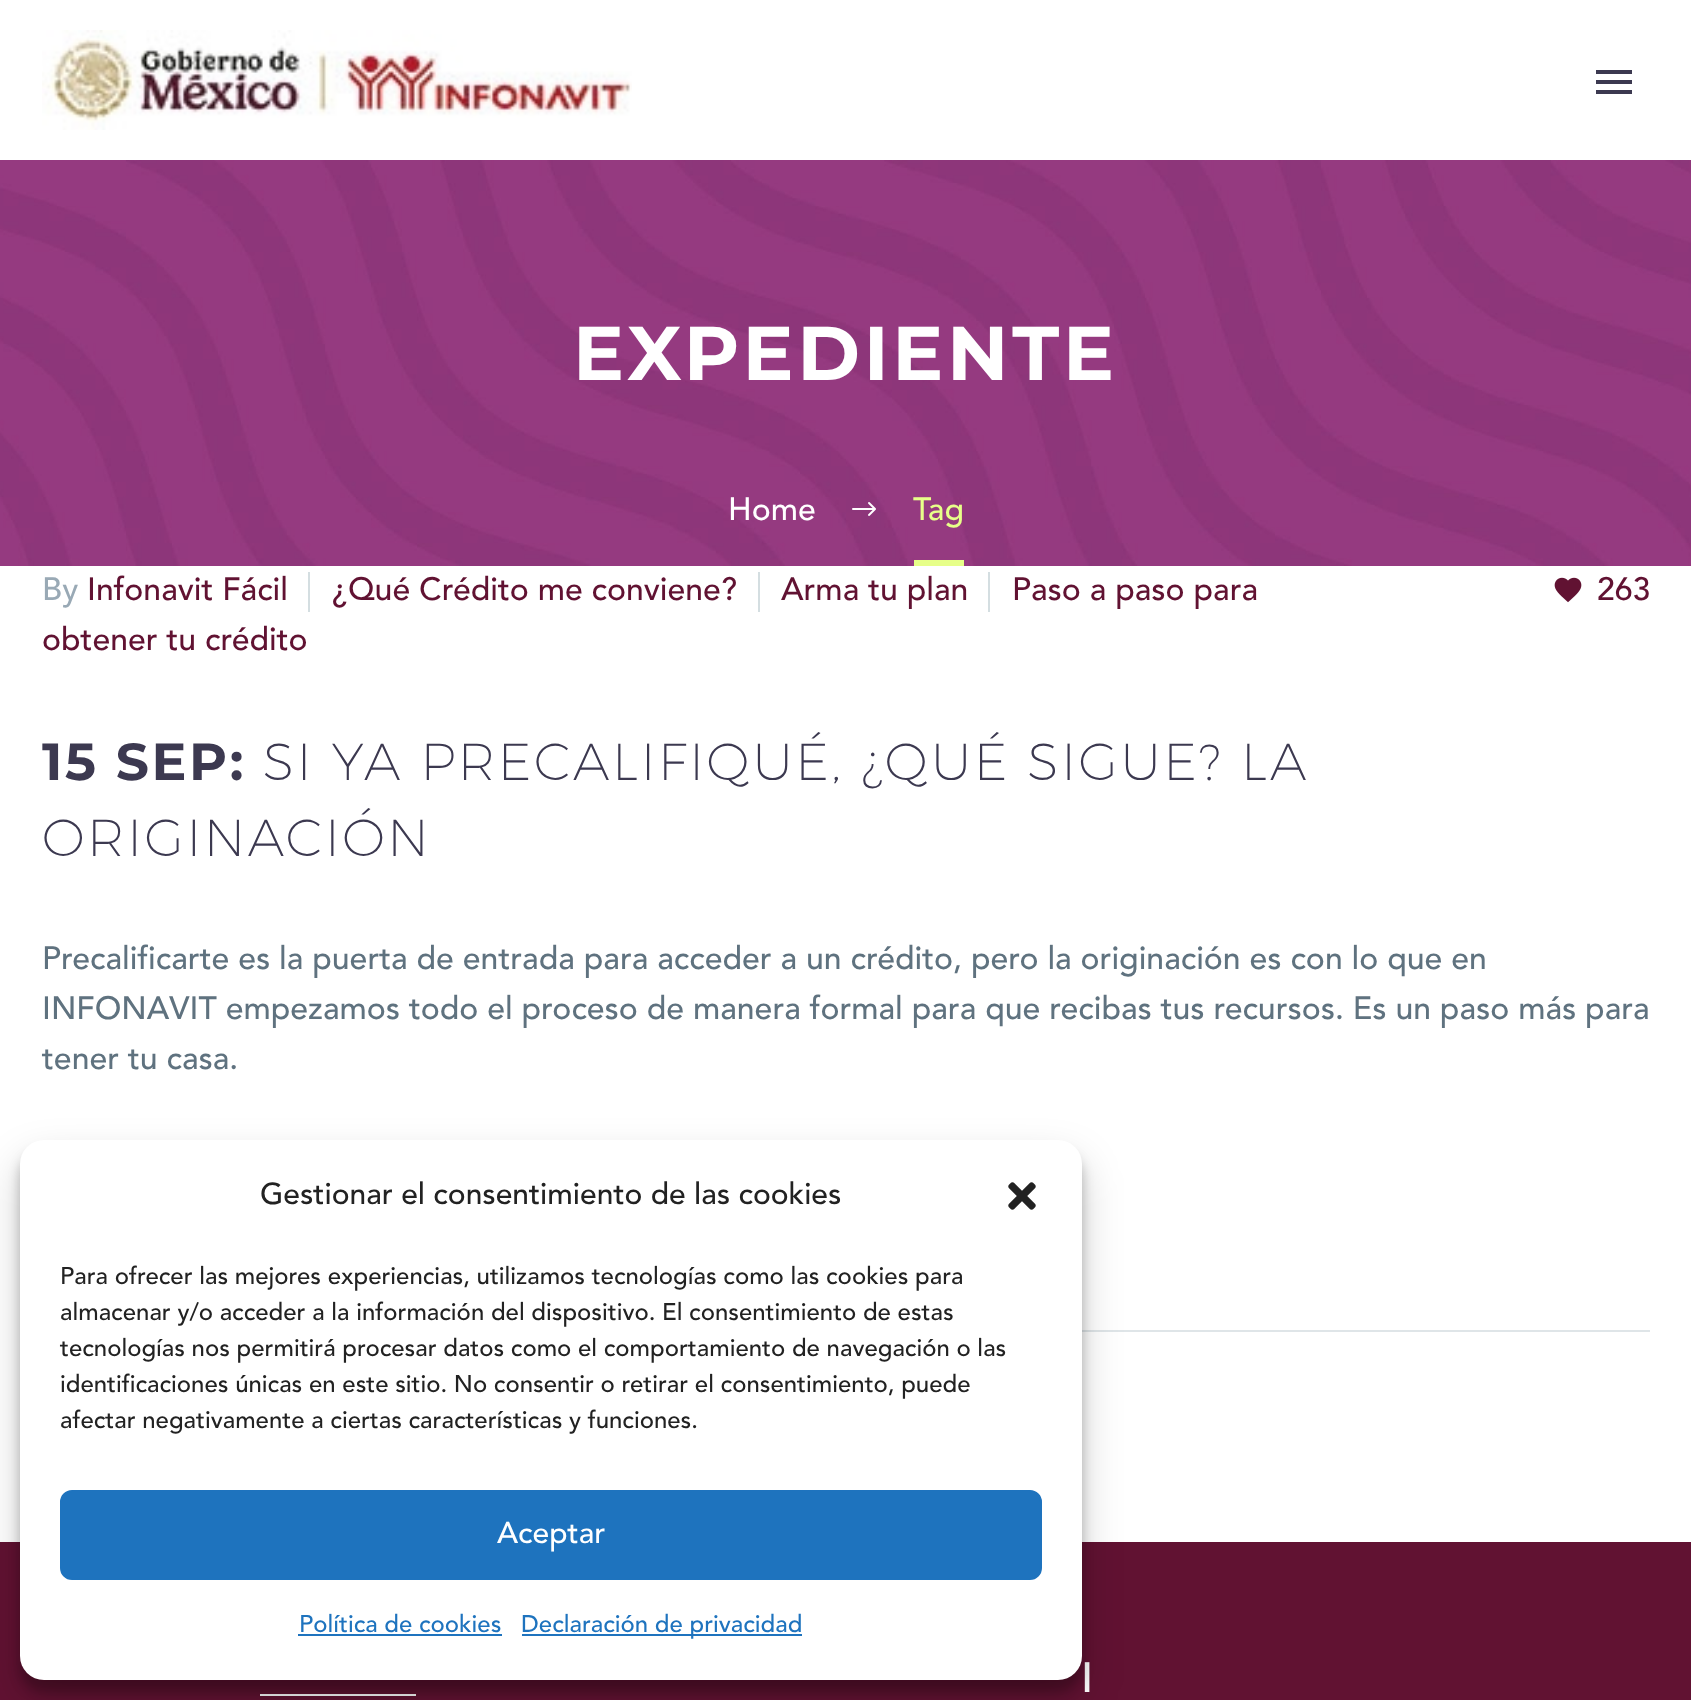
(async () => {
    const canvas = document.querySelector("canvas");
    canvas.width = 1691;
    canvas.height = 1700;
    const context = canvas.getContext("2d");
    context.miterLimit = 4;
    context.fontKerning = "normal";
    function write(s, x, y, font, color) {
        context.font = font;
        context.fillStyle = color;
        context.fillText(s, x, y);
    }
    function block(x, y, w, h, color) {
        context.fillStyle = color;
        context.fillRect(x, y, w, h);
    }
    function card(x, y, w, h, r, color) {
        context.fillStyle = color;
        context.beginPath();
        context.roundRect(x, y, w, h, r);
        context.fill();
    }
    async function photo(src, x, y, w, h) {
        const img = new Image();
        img.src = src;
        await img.decode();
        context.drawImage(img, x, y, w, h);
    }

    block(0, 0, 1691, 1700, "rgb(255, 255, 255)");
    await photo("media/1.png", 42, 30, 590, 100);
    block(1596, 70, 36, 4, "rgb(60, 57, 80)");
    block(1596, 80, 36, 4, "rgb(60, 57, 80)");
    block(1596, 90, 36, 4, "rgb(60, 57, 80)");
    await photo("media/2.png", 0, 160, 1691, 406);
    context.letterSpacing = "3.75px";
    write("EXPEDIENTE", 573, 380, "bold 76px Montserrat", "rgb(255, 255, 255)");
    context.letterSpacing = "0px";
    write("Home", 728, 520, "500 32px Avenir", "rgb(255, 255, 255)");
    await photo("media/3.png", 852, 502, 24, 14);
    block(914, 560, 50, 6, "rgb(231, 255, 137)");
    write("Tag", 913, 520, "500 32px Avenir", "rgb(231, 255, 137)");
    block(1082, 1330, 568, 2, "rgb(223, 229, 232)");
    block(308, 572, 2, 40, "rgb(212, 222, 225)");
    write("¿Qué Crédito me conviene?", 332, 600, "500 32px Avenir", "rgb(97, 18, 50)");
    block(758, 572, 2, 40, "rgb(212, 222, 225)");
    write("Arma tu plan", 781, 600, "500 32px Avenir", "rgb(97, 18, 50)");
    block(988, 572, 2, 40, "rgb(212, 222, 225)");
    write("Paso a paso para", 1012, 600, "500 32px Avenir", "rgb(97, 18, 50)");
    write("obtener tu crédito", 42, 650, "500 32px Avenir", "rgb(97, 18, 50)");
    write("By", 42, 600, "500 32px Avenir", "rgb(153, 169, 181)");
    write("Infonavit Fácil", 87, 600, "500 32px Avenir", "rgb(97, 18, 50)");
    await photo("media/4.png", 1554, 577, 28, 26);
    write("263", 1597, 600, "500 32px Avenir", "rgb(97, 18, 50)");
    context.letterSpacing = "2.6px";
    write("15 SEP:", 42, 780, "bold 52px Montserrat", "rgb(60, 57, 80)");
    write("SI YA PRECALIFIQUÉ, ¿QUÉ SIGUE? LA", 263, 780, "200 52px Montserrat", "rgb(60, 57, 80)");
    write("ORIGINACIÓN", 42, 856, "200 52px Montserrat", "rgb(60, 57, 80)");
    context.letterSpacing = "0px";
    write("Precalificarte es la puerta de entrada para acceder a un crédito, pero la originación es con lo que en", 42, 969, "500 32px Avenir", "rgb(95, 114, 127)");
    write("INFONAVIT empezamos todo el proceso de manera formal para que recibas tus recursos. Es un paso más para", 42, 1019, "500 32px Avenir", "rgb(95, 114, 127)");
    write("tener tu casa.", 42, 1069, "500 32px Avenir", "rgb(95, 114, 127)");
    block(0, 1542, 1691, 158, "rgb(97, 18, 50)");
    write("l", 1082, 1692, "bold 38px Avenir", "rgb(255, 255, 255)");
    block(260, 1694, 156, 2, "rgb(255, 255, 255)");
    context.fillStyle = "rgba(0, 0, 0, 0.23)";
    context.filter = "blur(6px)";
    context.beginPath();
    context.roundRect(20, 1152, 1062, 540, 24);
    context.fill();
    context.filter = "none";
    context.fillStyle = "rgba(0, 0, 0, 0.19)";
    context.filter = "blur(20px)";
    context.beginPath();
    context.roundRect(20, 1160, 1062, 540, 24);
    context.fill();
    context.filter = "none";
    card(20, 1140, 1062, 540, 24, "rgb(255, 255, 255)");
    write("Gestionar el consentimiento de las cookies", 260, 1204, "500 30px Avenir", "rgb(34, 34, 34)");
    await photo("media/5.png", 1008, 1182, 28, 28);
    write("Para ofrecer las mejores experiencias, utilizamos tecnologías como las cookies para", 60, 1284, "500 24px Avenir", "rgb(34, 34, 34)");
    write("almacenar y/o acceder a la información del dispositivo. El consentimiento de estas", 60, 1320, "500 24px Avenir", "rgb(34, 34, 34)");
    write("tecnologías nos permitirá procesar datos como el comportamiento de navegación o las", 60, 1356, "500 24px Avenir", "rgb(34, 34, 34)");
    write("identificaciones únicas en este sitio. No consentir o retirar el consentimiento, puede", 60, 1392, "500 24px Avenir", "rgb(34, 34, 34)");
    write("afectar negativamente a ciertas características y funciones.", 60, 1428, "500 24px Avenir", "rgb(34, 34, 34)");
    context.fillStyle = "rgb(30, 115, 190)";
    context.beginPath();
    context.roundRect(61, 1491, 980, 88, 11);
    context.fill();
    context.strokeStyle = "rgb(30, 115, 190)";
    context.lineWidth = 2;
    context.stroke();
    write("Aceptar", 497, 1543, "500 30px Avenir", "rgb(255, 255, 255)");
    write("Política de cookies", 299, 1632, "500 24px Avenir", "rgb(30, 115, 190)");
    block(298, 1634, 204, 2, "rgb(30, 115, 190)");
    block(522, 1634, 280, 2, "rgb(30, 115, 190)");
    write("Declaración de privacidad", 521, 1632, "500 24px Avenir", "rgb(30, 115, 190)");
})();
